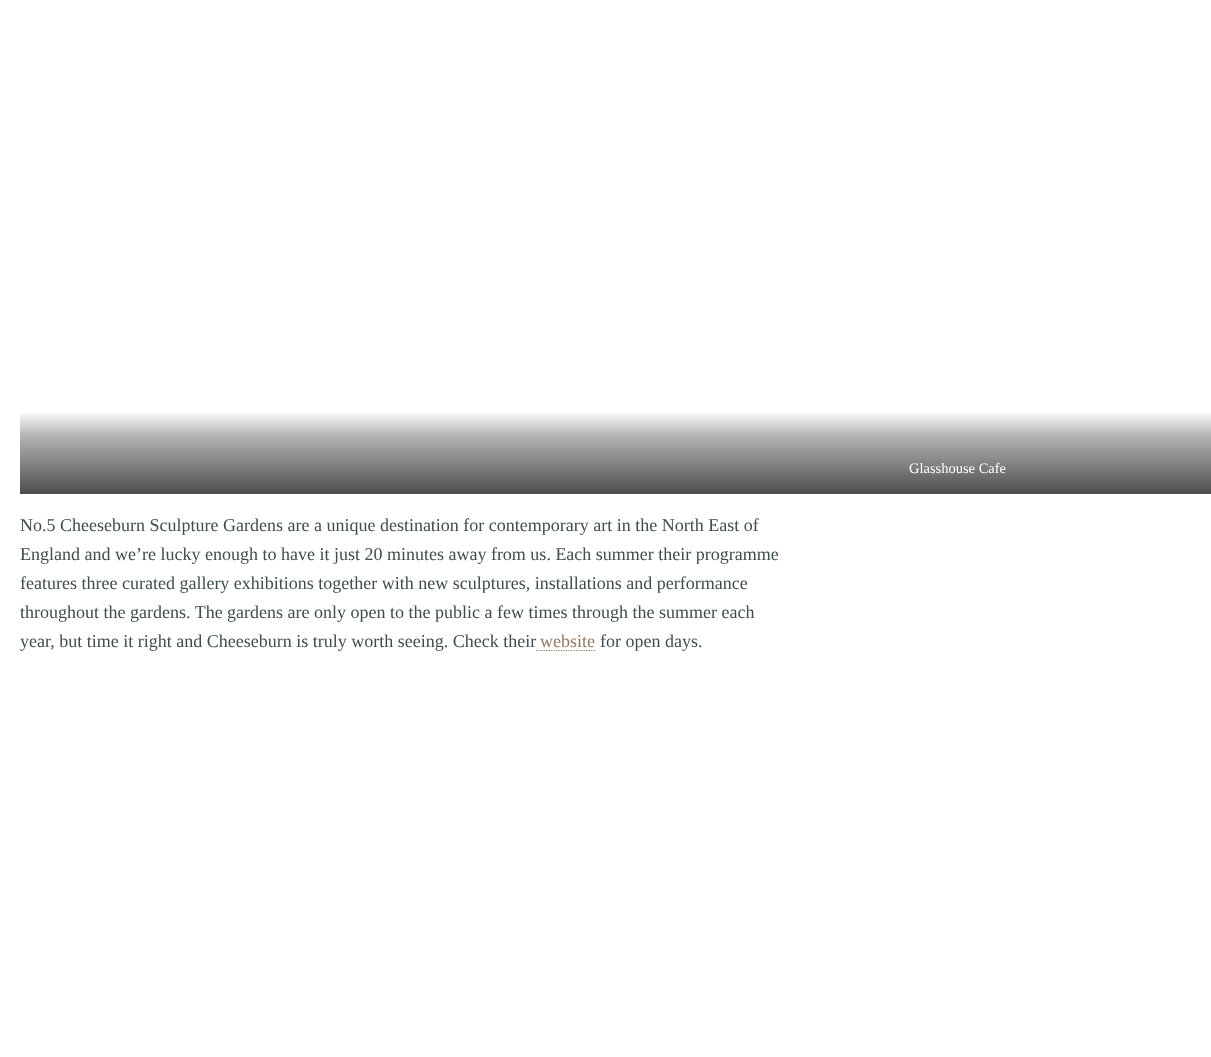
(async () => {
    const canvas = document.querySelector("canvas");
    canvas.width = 1211;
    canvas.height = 1057;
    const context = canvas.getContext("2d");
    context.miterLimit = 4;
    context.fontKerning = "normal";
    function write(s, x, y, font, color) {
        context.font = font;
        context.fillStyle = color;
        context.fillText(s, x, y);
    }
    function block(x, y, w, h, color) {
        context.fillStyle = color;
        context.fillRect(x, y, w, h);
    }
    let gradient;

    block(0, 0, 1211, 1057, "rgb(255, 255, 255)");
    gradient = context.createLinearGradient(958, 494, 958, 411);
    gradient.addColorStop(0, "rgb(77, 77, 77)");
    gradient.addColorStop(0.7, "rgb(179, 179, 179)");
    gradient.addColorStop(1, "rgb(255, 255, 255)");
    context.fillStyle = gradient;
    context.fillRect(20, 412, 1191, 82);
    write("Glasshouse Cafe", 909, 473, "14.5px Liberation Serif", "rgb(255, 255, 255)");
    write("No.5 Cheeseburn Sculpture Gardens are a unique destination for contemporary art in the North East of", 20, 531, "18px Liberation Serif", "rgb(63, 77, 77)");
    write("England and we’re lucky enough to have it just 20 minutes away from us. Each summer their programme", 20, 560, "18px Liberation Serif", "rgb(63, 77, 77)");
    write("features three curated gallery exhibitions together with new sculptures, installations and performance", 20, 589, "18px Liberation Serif", "rgb(63, 77, 77)");
    write("throughout the gardens. The gardens are only open to the public a few times through the summer each", 20, 618, "18px Liberation Serif", "rgb(63, 77, 77)");
    write("year, but time it right and Cheeseburn is truly worth seeing. Check their", 20, 647, "18px Liberation Serif", "rgb(63, 77, 77)");
    write("website", 540, 647, "18px Liberation Serif", "rgb(145, 121, 98)");
    context.beginPath();
    context.moveTo(536, 650.5);
    context.lineTo(595, 650.5);
    context.strokeStyle = "rgb(145, 121, 98)";
    context.lineWidth = 1.2;
    context.setLineDash([1.25, 1.25]);
    context.stroke();
    write("for open days.", 600, 647, "18px Liberation Serif", "rgb(63, 77, 77)");
})();
